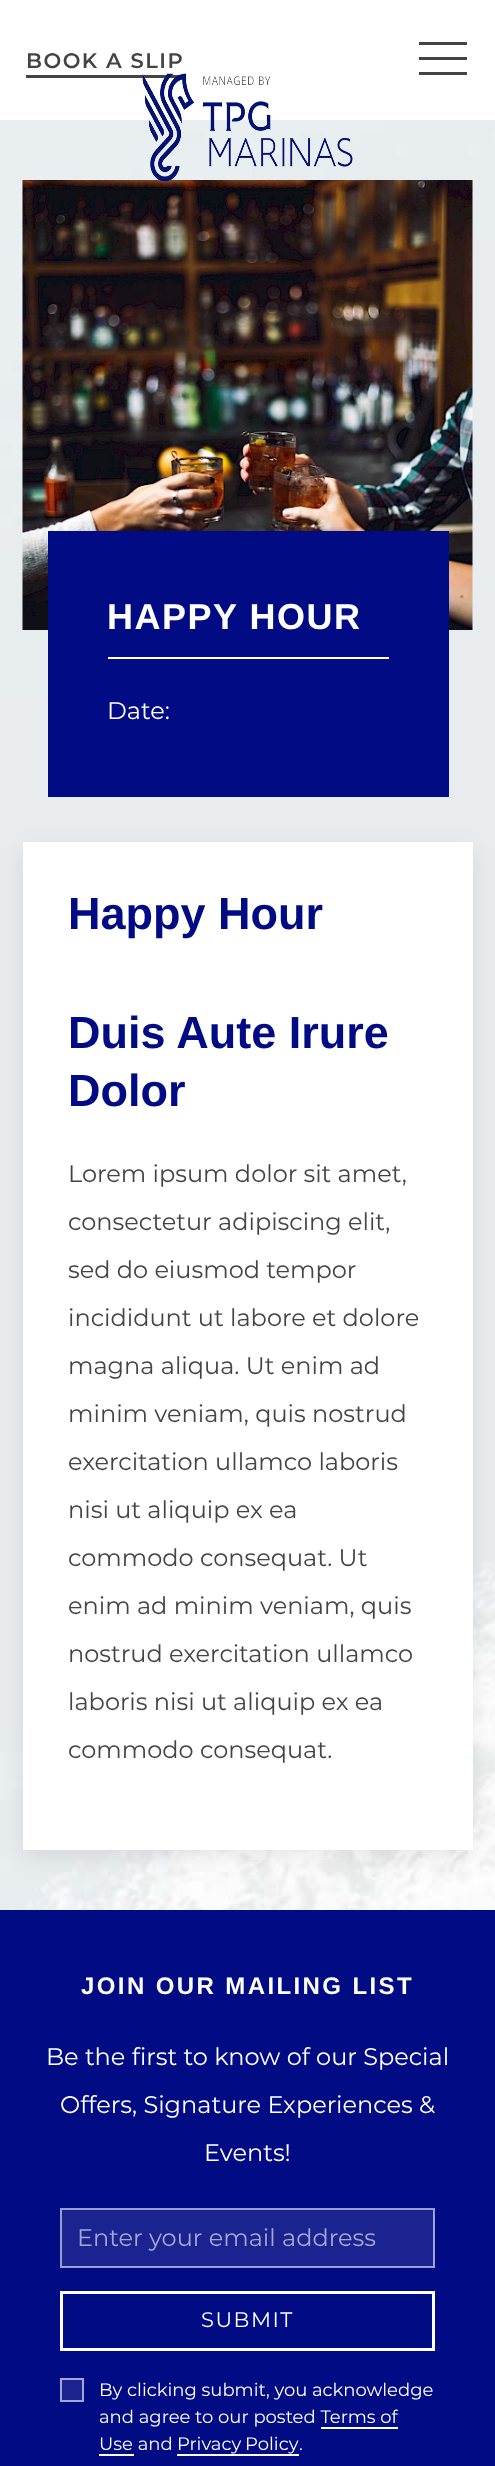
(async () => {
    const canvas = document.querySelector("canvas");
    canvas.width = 495;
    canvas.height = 2466;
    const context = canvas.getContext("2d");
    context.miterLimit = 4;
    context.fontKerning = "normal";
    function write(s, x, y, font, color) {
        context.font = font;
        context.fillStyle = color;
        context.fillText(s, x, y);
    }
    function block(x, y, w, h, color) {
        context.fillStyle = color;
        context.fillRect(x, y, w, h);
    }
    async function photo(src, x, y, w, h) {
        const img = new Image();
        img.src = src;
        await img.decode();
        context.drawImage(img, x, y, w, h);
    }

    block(0, 0, 495, 2466, "rgb(255, 255, 255)");
    await photo("media/1.png", 0, 120, 495, 1790);
    context.letterSpacing = "1.5px";
    write("BOOK A SLIP", 26, 68, "600 21px Montserrat", "rgb(68, 68, 68)");
    block(26, 75, 157, 3, "rgb(68, 68, 68)");
    block(419, 42, 48, 3, "rgb(68, 68, 68)");
    block(419, 57, 48, 3, "rgb(68, 68, 68)");
    block(419, 72, 48, 3, "rgb(68, 68, 68)");
    await photo("media/3.png", 22, 180, 451, 450);
    await photo("media/2.png", 142, 73, 211, 109);
    block(48, 531, 401, 266, "rgb(0, 11, 132)");
    block(108, 657, 281, 2, "rgb(255, 255, 255)");
    write("HAPPY HOUR", 107, 629, "bold 36px Liberation Sans", "rgb(255, 255, 255)");
    context.letterSpacing = "0px";
    write("Date:", 107, 719, "24px Montserrat", "rgb(255, 255, 255)");
    context.fillStyle = "rgba(0, 0, 0, 0.08)";
    context.filter = "blur(11px)";
    context.beginPath();
    context.rect(23, 849, 450, 1008);
    context.fill();
    context.filter = "none";
    block(23, 842, 450, 1008, "rgb(255, 255, 255)");
    write("Happy Hour", 68, 929, "bold 45px Liberation Sans", "rgb(0, 11, 132)");
    write("Duis Aute Irure", 68, 1048, "bold 45px Liberation Sans", "rgb(0, 11, 132)");
    write("Dolor", 68, 1106, "bold 45px Liberation Sans", "rgb(0, 11, 132)");
    write("Lorem ipsum dolor sit amet,", 68, 1182, "24px Montserrat", "rgb(68, 68, 68)");
    write("consectetur adipiscing elit,", 68, 1230, "24px Montserrat", "rgb(68, 68, 68)");
    write("sed do eiusmod tempor", 68, 1278, "24px Montserrat", "rgb(68, 68, 68)");
    write("incididunt ut labore et dolore", 68, 1326, "24px Montserrat", "rgb(68, 68, 68)");
    write("magna aliqua. Ut enim ad", 68, 1374, "24px Montserrat", "rgb(68, 68, 68)");
    write("minim veniam, quis nostrud", 68, 1422, "24px Montserrat", "rgb(68, 68, 68)");
    write("exercitation ullamco laboris", 68, 1470, "24px Montserrat", "rgb(68, 68, 68)");
    write("nisi ut aliquip ex ea", 68, 1518, "24px Montserrat", "rgb(68, 68, 68)");
    write("commodo consequat. Ut", 68, 1566, "24px Montserrat", "rgb(68, 68, 68)");
    write("enim ad minim veniam, quis", 68, 1614, "24px Montserrat", "rgb(68, 68, 68)");
    write("nostrud exercitation ullamco", 68, 1662, "24px Montserrat", "rgb(68, 68, 68)");
    write("laboris nisi ut aliquip ex ea", 68, 1710, "24px Montserrat", "rgb(68, 68, 68)");
    write("commodo consequat.", 68, 1758, "24px Montserrat", "rgb(68, 68, 68)");
    block(0, 1910, 495, 556, "rgb(0, 11, 132)");
    context.letterSpacing = "2.4px";
    write("JOIN OUR MAILING LIST", 81, 1994, "bold 24px Liberation Sans", "rgb(255, 255, 255)");
    context.letterSpacing = "0px";
    write("Be the first to know of our Special", 46, 2065, "24px Montserrat", "rgb(255, 255, 255)");
    write("Offers, Signature Experiences &", 60, 2113, "24px Montserrat", "rgb(255, 255, 255)");
    write("Events!", 204, 2161, "24px Montserrat", "rgb(255, 255, 255)");
    block(62, 2210, 372, 57, "rgb(26, 35, 144)");
    context.strokeStyle = "rgba(255, 255, 255, 0.6)";
    context.lineWidth = 2;
    context.strokeRect(61, 2209, 373, 58);
    write("Enter your email address", 77, 2246, "24px Montserrat", "rgb(163, 167, 211)");
    context.strokeStyle = "rgb(255, 255, 255)";
    context.lineWidth = 3;
    context.strokeRect(61.5, 2292.5, 372, 57);
    context.letterSpacing = "1.5px";
    write("SUBMIT", 201, 2327, "21px Montserrat", "rgb(255, 255, 255)");
    context.fillStyle = "rgb(26, 35, 144)";
    context.beginPath();
    context.rect(61, 2379, 22, 22);
    context.fill();
    context.strokeStyle = "rgb(163, 167, 211)";
    context.lineWidth = 2;
    context.stroke();
    context.letterSpacing = "0px";
    write("By clicking submit, you acknowledge", 99, 2396, "18px Montserrat", "rgb(255, 255, 255)");
    write("and agree to our posted Terms of", 99, 2423, "18px Montserrat", "rgb(255, 255, 255)");
    write("Use and", 99, 2450, "18px Montserrat", "rgb(255, 255, 255)");
    block(321, 2427, 77, 2, "rgb(255, 255, 255)");
    block(99, 2454, 35, 2, "rgb(255, 255, 255)");
    context.wordSpacing = "-1px";
    write("Privacy Policy", 177, 2450, "18px Montserrat", "rgb(255, 255, 255)");
    block(177, 2454, 122, 2, "rgb(255, 255, 255)");
    context.wordSpacing = "0px";
    write(".", 299, 2450, "18px Montserrat", "rgb(255, 255, 255)");
})();
